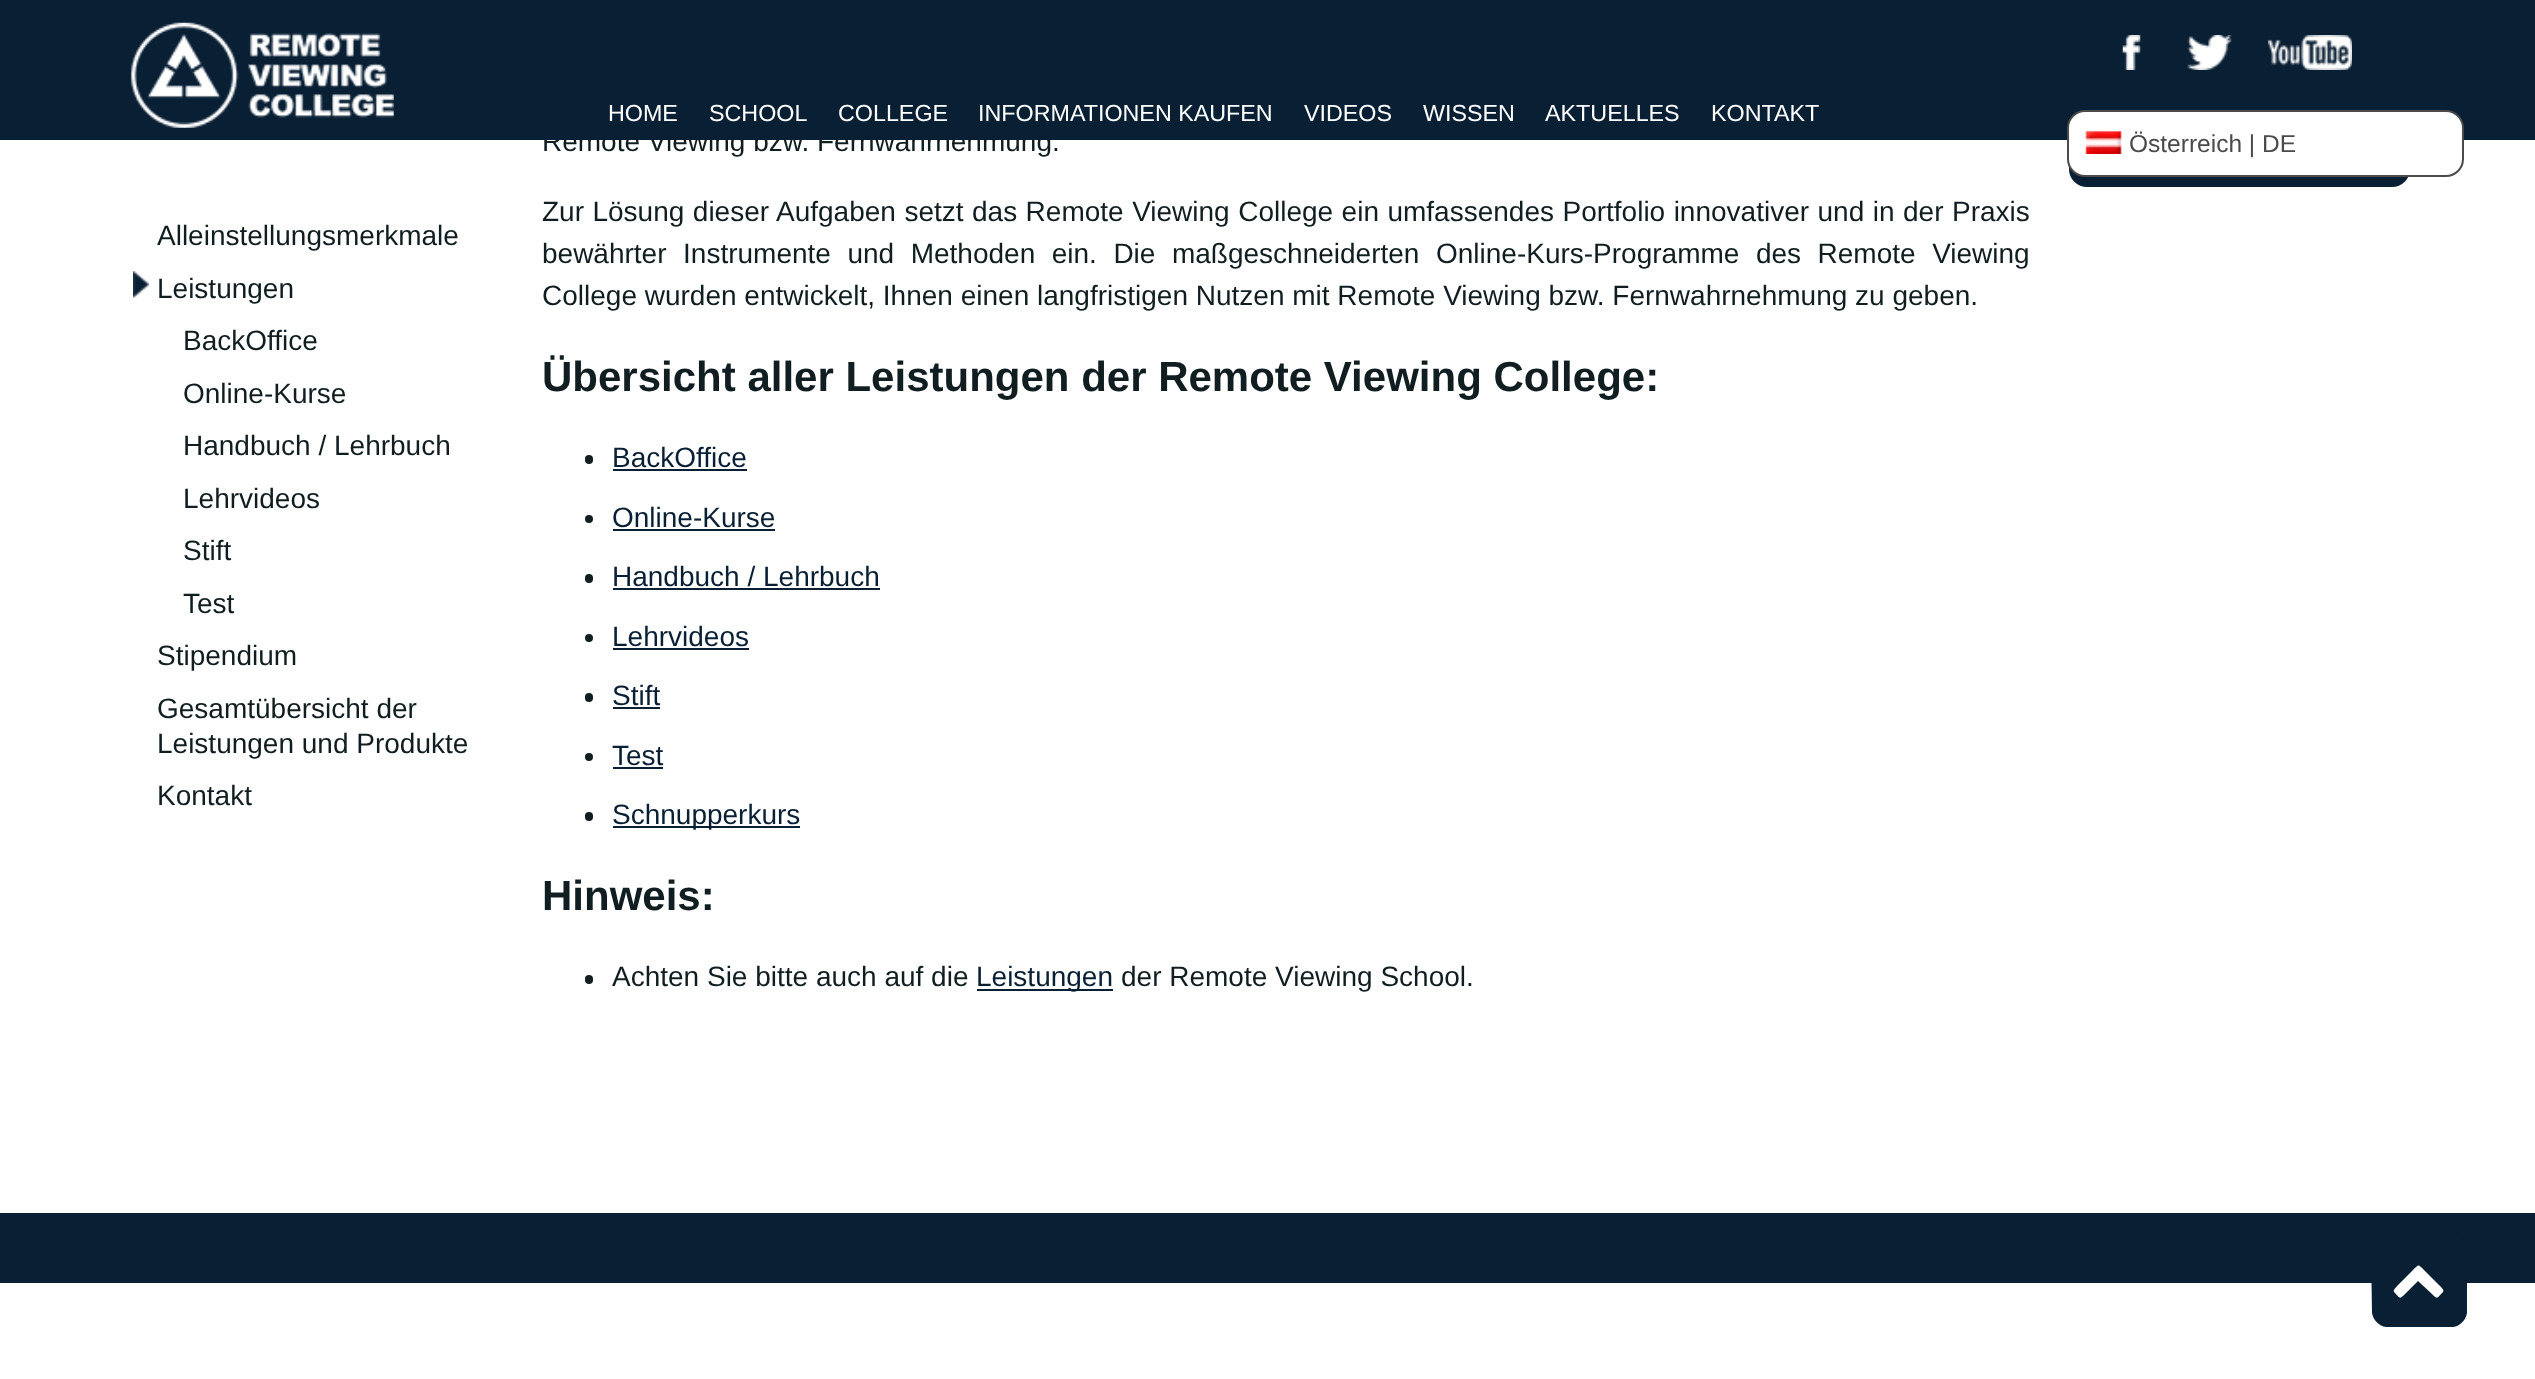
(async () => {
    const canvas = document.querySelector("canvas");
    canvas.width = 2535;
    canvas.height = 1379;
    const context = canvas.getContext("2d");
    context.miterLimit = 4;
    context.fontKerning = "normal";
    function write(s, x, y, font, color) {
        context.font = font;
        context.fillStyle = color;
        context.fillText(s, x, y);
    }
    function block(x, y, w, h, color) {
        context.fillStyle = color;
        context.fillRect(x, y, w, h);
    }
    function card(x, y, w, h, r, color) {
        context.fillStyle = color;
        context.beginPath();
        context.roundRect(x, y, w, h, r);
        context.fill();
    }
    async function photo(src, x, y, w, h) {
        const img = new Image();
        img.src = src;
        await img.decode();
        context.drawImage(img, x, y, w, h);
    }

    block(0, 0, 2535, 1379, "rgb(255, 255, 255)");
    write("Remote Viewing bzw. Fernwahrnehmung.", 542, 151, "28px Liberation Sans", "rgb(16, 30, 33)");
    card(2069, -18, 341, 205, 18, "rgb(9, 31, 52)");
    block(0, 0, 2535, 140, "rgb(9, 31, 52)");
    await photo("media/1.png", 2122, 35, 19, 35);
    await photo("media/2.png", 2187, 35, 45, 35);
    await photo("media/3.png", 2268, 35, 84, 35);
    await photo("media/4.png", 130, 22, 264, 106);
    write("HOME", 608, 121, "23.3px Liberation Sans", "rgb(255, 255, 255)");
    write("SCHOOL", 709, 121, "23.3px Liberation Sans", "rgb(255, 255, 255)");
    write("COLLEGE", 838, 121, "23.3px Liberation Sans", "rgb(255, 255, 255)");
    write("INFORMATIONEN KAUFEN", 978, 121, "23.3px Liberation Sans", "rgb(255, 255, 255)");
    write("VIDEOS", 1304, 121, "23.3px Liberation Sans", "rgb(255, 255, 255)");
    write("WISSEN", 1423, 121, "23.3px Liberation Sans", "rgb(255, 255, 255)");
    write("AKTUELLES", 1545, 121, "23.3px Liberation Sans", "rgb(255, 255, 255)");
    write("KONTAKT", 1711, 121, "23.3px Liberation Sans", "rgb(255, 255, 255)");
    context.wordSpacing = "0.7px";
    write("Zur Lösung dieser Aufgaben setzt das Remote Viewing College ein umfassendes Portfolio innovativer und in der Praxis", 542, 221, "28px Liberation Sans", "rgb(16, 30, 33)");
    context.wordSpacing = "8.75px";
    write("bewährter Instrumente und Methoden ein. Die maßgeschneiderten Online-Kurs-Programme des Remote Viewing", 542, 263, "28px Liberation Sans", "rgb(16, 30, 33)");
    context.wordSpacing = "0px";
    write("College wurden entwickelt, Ihnen einen langfristigen Nutzen mit Remote Viewing bzw. Fernwahrnehmung zu geben.", 542, 305, "28px Liberation Sans", "rgb(16, 30, 33)");
    write("Übersicht aller Leistungen der Remote Viewing College:", 542, 391, "bold 42px Liberation Sans", "rgb(16, 30, 33)");
    card(585, 455, 8, 9, 4, "rgb(16, 30, 33)");
    write("BackOffice", 612, 467, "28px Liberation Sans", "rgb(9, 31, 52)");
    block(613, 469, 134, 2, "rgb(9, 31, 52)");
    context.fillStyle = "rgb(16, 30, 33)";
    context.beginPath();
    context.arc(589, 519, 4, 0, Math.PI * 2);
    context.fill();
    write("Online-Kurse", 612, 527, "28px Liberation Sans", "rgb(9, 31, 52)");
    block(613, 529, 162, 2, "rgb(9, 31, 52)");
    card(585, 574, 8, 9, 4, "rgb(16, 30, 33)");
    write("Handbuch / Lehrbuch", 612, 586, "28px Liberation Sans", "rgb(9, 31, 52)");
    block(613, 588, 267, 2, "rgb(9, 31, 52)");
    context.fillStyle = "rgb(16, 30, 33)";
    context.beginPath();
    context.arc(589, 638, 4, 0, Math.PI * 2);
    context.fill();
    write("Lehrvideos", 612, 646, "28px Liberation Sans", "rgb(9, 31, 52)");
    block(613, 648, 136, 2, "rgb(9, 31, 52)");
    card(585, 693, 8, 9, 4, "rgb(16, 30, 33)");
    write("Stift", 612, 705, "28px Liberation Sans", "rgb(9, 31, 52)");
    block(613, 707, 47, 2, "rgb(9, 31, 52)");
    context.fillStyle = "rgb(16, 30, 33)";
    context.beginPath();
    context.arc(589, 757, 4, 0, Math.PI * 2);
    context.fill();
    write("Test", 612, 765, "28px Liberation Sans", "rgb(9, 31, 52)");
    block(613, 767, 50, 2, "rgb(9, 31, 52)");
    card(585, 812, 8, 9, 4, "rgb(16, 30, 33)");
    block(613, 826, 187, 2, "rgb(9, 31, 52)");
    write("Schnupperkurs", 612, 824, "28px Liberation Sans", "rgb(9, 31, 52)");
    write("Hinweis:", 542, 910, "bold 42px Liberation Sans", "rgb(16, 30, 33)");
    card(585, 975, 8, 9, 4, "rgb(16, 30, 33)");
    write("Achten Sie bitte auch auf die", 612, 986, "28px Liberation Sans", "rgb(16, 30, 33)");
    block(977, 989, 136, 2, "rgb(9, 31, 52)");
    write("Leistungen", 976, 986, "28px Liberation Sans", "rgb(9, 31, 52)");
    write("der Remote Viewing School.", 1121, 986, "28px Liberation Sans", "rgb(16, 30, 33)");
    context.fillStyle = "rgb(255, 255, 255)";
    context.beginPath();
    context.roundRect(2068, 111, 395, 65, 17);
    context.fill();
    context.strokeStyle = "rgb(75, 75, 75)";
    context.lineWidth = 2;
    context.stroke();
    await photo("media/5.png", 2085, 130, 37, 24);
    write("Österreich | DE", 2129, 152, "24.5px Liberation Sans", "rgb(75, 75, 75)");
    write("Alleinstellungsmerkmale", 157, 245, "28px Liberation Sans", "rgb(16, 30, 33)");
    await photo("media/6.png", 133, 271, 16, 27);
    write("Leistungen", 157, 298, "28px Liberation Sans", "rgb(16, 30, 33)");
    write("BackOffice", 183, 350, "28px Liberation Sans", "rgb(16, 30, 33)");
    write("Online-Kurse", 183, 403, "28px Liberation Sans", "rgb(16, 30, 33)");
    write("Handbuch / Lehrbuch", 183, 455, "28px Liberation Sans", "rgb(16, 30, 33)");
    write("Lehrvideos", 183, 508, "28px Liberation Sans", "rgb(16, 30, 33)");
    write("Stift", 183, 560, "28px Liberation Sans", "rgb(16, 30, 33)");
    write("Test", 183, 613, "28px Liberation Sans", "rgb(16, 30, 33)");
    write("Stipendium", 157, 665, "28px Liberation Sans", "rgb(16, 30, 33)");
    write("Gesamtübersicht der", 157, 718, "28px Liberation Sans", "rgb(16, 30, 33)");
    write("Leistungen und Produkte", 157, 753, "28px Liberation Sans", "rgb(16, 30, 33)");
    write("Kontakt", 157, 805, "28px Liberation Sans", "rgb(16, 30, 33)");
    block(0, 1213, 2535, 70, "rgb(9, 31, 52)");
    context.beginPath();
    context.moveTo(2467, 1250);
    context.lineTo(2467, 1313);
    context.bezierCurveTo(2466, 1320, 2460, 1326, 2453, 1327);
    context.lineTo(2386, 1327);
    context.bezierCurveTo(2379, 1326, 2373, 1320, 2372, 1313);
    context.lineTo(2371, 1250);
    context.bezierCurveTo(2371, 1241, 2377, 1233, 2386, 1232);
    context.lineTo(2453, 1232);
    context.bezierCurveTo(2461, 1233, 2467, 1241, 2467, 1250);
    context.closePath();
    context.fill();
    context.fillStyle = "rgb(255, 255, 255)";
    context.beginPath();
    context.moveTo(2443, 1292);
    context.bezierCurveTo(2437, 1298, 2438, 1300, 2432, 1294);
    context.lineTo(2418, 1281);
    context.lineTo(2405, 1294);
    context.bezierCurveTo(2399, 1300, 2400, 1298, 2395, 1293);
    context.bezierCurveTo(2392, 1290, 2395, 1289, 2398, 1285);
    context.lineTo(2413, 1270);
    context.bezierCurveTo(2419, 1264, 2418, 1264, 2424, 1270);
    context.lineTo(2439, 1285);
    context.bezierCurveTo(2440, 1286, 2445, 1290, 2443, 1292);
    context.closePath();
    context.fill();
})();
